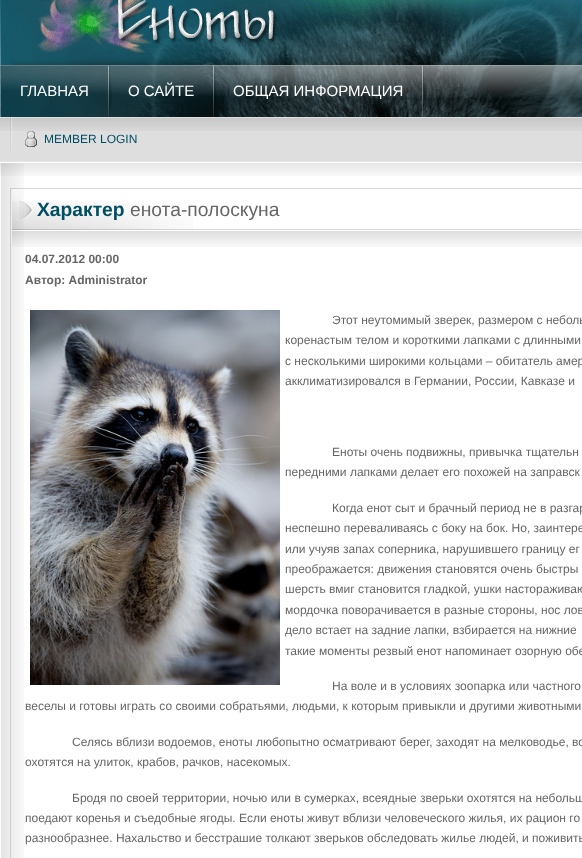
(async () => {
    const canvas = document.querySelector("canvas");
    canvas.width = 582;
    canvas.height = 858;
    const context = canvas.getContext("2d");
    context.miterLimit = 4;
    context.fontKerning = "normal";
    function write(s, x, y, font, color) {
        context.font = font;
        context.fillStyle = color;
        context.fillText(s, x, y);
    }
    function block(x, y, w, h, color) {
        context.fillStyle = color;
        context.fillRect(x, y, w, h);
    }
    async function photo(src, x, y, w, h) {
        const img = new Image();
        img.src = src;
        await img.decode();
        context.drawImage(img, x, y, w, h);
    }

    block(0, 0, 582, 858, "rgb(255, 255, 255)");
    await photo("media/1.png", 0, 0, 582, 117);
    await photo("media/2.png", 0, 0, 1, 65);
    await photo("media/3.png", 10, 55, 572, 10);
    block(0, 65, 582, 52, "rgba(0, 0, 0, 0.3)");
    block(0, 65, 582, 1, "rgba(134, 134, 134, 0.48)");
    await photo("media/4.png", 1, 65, 581, 33);
    await photo("media/5.png", 0, 65, 1, 52);
    await photo("media/6.png", 108, 66, 4, 51);
    write("ГЛАВНАЯ", 20, 96, "15px Liberation Sans", "rgb(255, 255, 255)");
    await photo("media/7.png", 213, 65, 4, 52);
    write("О САЙТЕ", 128, 96, "15px Liberation Sans", "rgb(255, 255, 255)");
    await photo("media/8.png", 422, 65, 4, 52);
    write("ОБЩАЯ ИНФОРМАЦИЯ", 233, 96, "15px Liberation Sans", "rgb(255, 255, 255)");
    block(0, 117, 582, 44, "rgb(222, 222, 222)");
    await photo("media/9.png", 0, 118, 582, 13);
    await photo("media/10.png", 10, 117, 2, 34);
    await photo("media/11.png", 25, 131, 12, 16);
    write("MEMBER LOGIN", 44, 143, "12px Liberation Sans", "rgb(0, 78, 99)");
    await photo("media/12.png", 0, 161, 582, 15);
    await photo("media/13.png", 1, 163, 23, 695);
    block(27, 188, 555, 1, "rgb(219, 219, 219)");
    block(10, 188, 17, 1, "rgba(0, 0, 0, 0.14)");
    block(10, 189, 1, 669, "rgb(204, 204, 204)");
    await photo("media/14.png", 12, 201, 181, 29);
    await photo("media/15.png", 12, 189, 7, 8);
    await photo("media/16.png", 19, 200, 15, 20);
    write("Характер", 37, 216, "bold 19.25px Liberation Sans", "rgb(0, 78, 99)");
    write("енота-полоскуна", 130, 216, "19.25px Liberation Sans", "rgb(102, 102, 102)");
    await photo("media/17.png", 12, 229, 570, 18);
    write("04.07.2012 00:00", 25, 263, "bold 12px Liberation Sans", "rgb(102, 102, 102)");
    write("Автор: Administrator", 25, 284, "bold 12px Liberation Sans", "rgb(102, 102, 102)");
    await photo("media/18.png", 30, 310, 250, 375);
    write("Этот неутомимый зверек, размером с неболь", 332, 324, "12px Liberation Sans", "rgb(102, 102, 102)");
    write("коренастым телом и короткими лапками с длинными", 285, 344, "12px Liberation Sans", "rgb(102, 102, 102)");
    write("с несколькими широкими кольцами – обитатель амер", 285, 365, "12px Liberation Sans", "rgb(102, 102, 102)");
    write("акклиматизировался в Германии, России, Кавказе и", 285, 385, "12px Liberation Sans", "rgb(102, 102, 102)");
    write("Еноты очень подвижны, привычка тщательн", 332, 456, "12px Liberation Sans", "rgb(102, 102, 102)");
    write("передними лапками делает его похожей на заправск", 285, 476, "12px Liberation Sans", "rgb(102, 102, 102)");
    write("Когда енот сыт и брачный период не в разгар", 332, 512, "12px Liberation Sans", "rgb(102, 102, 102)");
    write("неспешно переваливаясь с боку на бок. Но, заинтере", 285, 532, "12px Liberation Sans", "rgb(102, 102, 102)");
    write("или учуяв запах соперника, нарушившего границу ег", 285, 553, "12px Liberation Sans", "rgb(102, 102, 102)");
    write("преображается: движения становятся очень быстры", 285, 573, "12px Liberation Sans", "rgb(102, 102, 102)");
    write("шерсть вмиг становится гладкой, ушки настораживаю", 285, 593, "12px Liberation Sans", "rgb(102, 102, 102)");
    write("мордочка поворачивается в разные стороны, нос лов", 285, 614, "12px Liberation Sans", "rgb(102, 102, 102)");
    write("дело встает на задние лапки, взбирается на нижние", 285, 634, "12px Liberation Sans", "rgb(102, 102, 102)");
    write("такие моменты резвый енот напоминает озорную обе", 285, 655, "12px Liberation Sans", "rgb(102, 102, 102)");
    write("На воле и в условиях зоопарка или частного", 332, 690, "12px Liberation Sans", "rgb(102, 102, 102)");
    write("веселы и готовы играть со своими собратьями, людьми, к которым привыкли и другими животными", 25, 710, "12px Liberation Sans", "rgb(102, 102, 102)");
    write("Селясь вблизи водоемов, еноты любопытно осматривают берег, заходят на мелководье, во", 72, 746, "12px Liberation Sans", "rgb(102, 102, 102)");
    write("охотятся на улиток, крабов, рачков, насекомых.", 25, 766, "12px Liberation Sans", "rgb(102, 102, 102)");
    write("Бродя по своей территории, ночью или в сумерках, всеядные зверьки охотятся на небольш", 72, 802, "12px Liberation Sans", "rgb(102, 102, 102)");
    write("поедают коренья и съедобные ягоды. Если еноты живут вблизи человеческого жилья, их рацион го", 25, 822, "12px Liberation Sans", "rgb(102, 102, 102)");
    write("разнообразнее. Нахальство и бесстрашие толкают зверьков обследовать жилье людей, и поживить", 25, 842, "12px Liberation Sans", "rgb(102, 102, 102)");
})();
